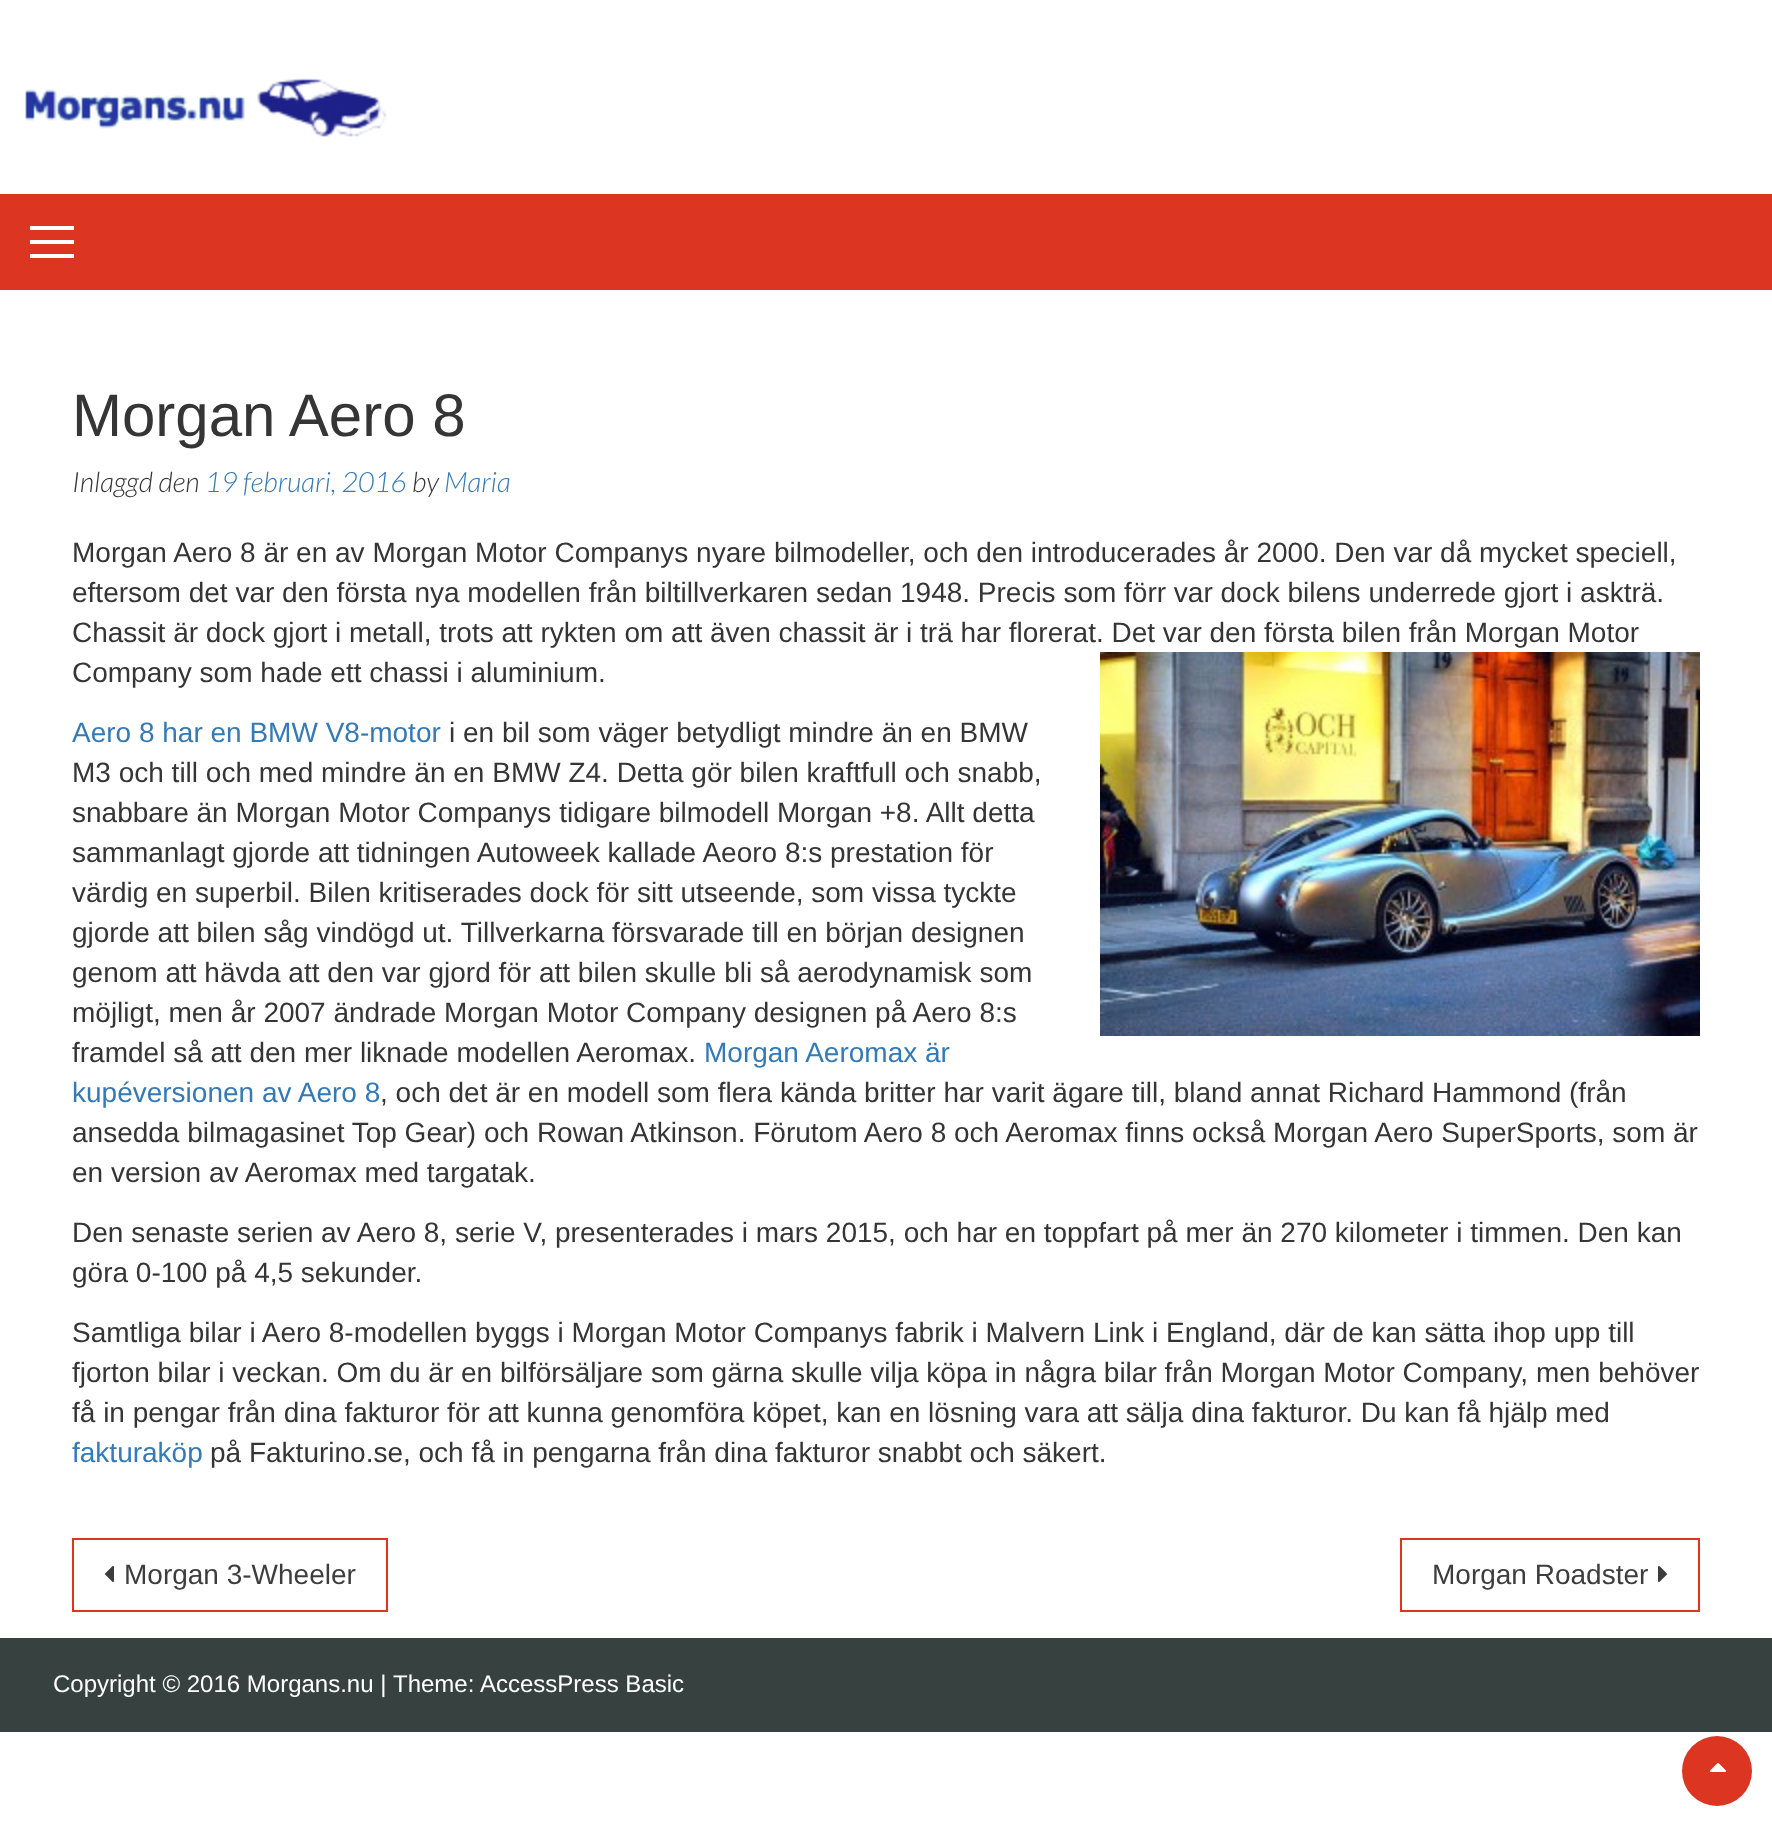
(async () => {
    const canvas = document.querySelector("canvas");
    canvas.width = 1772;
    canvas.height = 1846;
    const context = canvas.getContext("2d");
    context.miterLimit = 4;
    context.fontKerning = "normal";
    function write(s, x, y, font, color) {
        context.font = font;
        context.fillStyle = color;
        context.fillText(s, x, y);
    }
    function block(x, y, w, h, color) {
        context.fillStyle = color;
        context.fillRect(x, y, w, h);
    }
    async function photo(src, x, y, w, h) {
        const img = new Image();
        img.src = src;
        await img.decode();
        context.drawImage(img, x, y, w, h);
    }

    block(0, 0, 1772, 1846, "rgb(255, 255, 255)");
    await photo("media/1.png", 25, 78, 362, 59);
    block(0, 194, 1772, 96, "rgb(220, 53, 34)");
    block(30, 226, 44, 4, "rgb(255, 255, 255)");
    block(30, 240, 44, 4, "rgb(255, 255, 255)");
    block(30, 254, 44, 4, "rgb(255, 255, 255)");
    write("Morgan Aero 8", 72, 436, "60px Liberation Sans", "rgb(53, 53, 53)");
    write("Inlaggd den", 72, 492, "italic 300 28px Lato", "rgb(53, 53, 53)");
    write("19 februari, 2016", 205, 492, "italic 300 28px Lato", "rgb(51, 122, 183)");
    write("by", 412, 492, "italic 300 28px Lato", "rgb(53, 53, 53)");
    write("Maria", 444, 492, "italic 300 28px Lato", "rgb(51, 122, 183)");
    write("Morgan Aero 8 är en av Morgan Motor Companys nyare bilmodeller, och den introducerades år 2000. Den var då mycket speciell,", 72, 562, "28px Liberation Sans", "rgb(53, 53, 53)");
    write("eftersom det var den första nya modellen från biltillverkaren sedan 1948. Precis som förr var dock bilens underrede gjort i askträ.", 72, 602, "28px Liberation Sans", "rgb(53, 53, 53)");
    write("Chassit är dock gjort i metall, trots att rykten om att även chassit är i trä har florerat. Det var den första bilen från Morgan Motor", 72, 642, "28px Liberation Sans", "rgb(53, 53, 53)");
    write("Company som hade ett chassi i aluminium.", 72, 682, "28px Liberation Sans", "rgb(53, 53, 53)");
    await photo("media/2.png", 1100, 652, 600, 384);
    write("Aero 8 har en BMW V8-motor", 72, 742, "28px Liberation Sans", "rgb(51, 122, 183)");
    write("i en bil som väger betydligt mindre än en BMW", 449, 742, "28px Liberation Sans", "rgb(53, 53, 53)");
    write("M3 och till och med mindre än en BMW Z4. Detta gör bilen kraftfull och snabb,", 72, 782, "28px Liberation Sans", "rgb(53, 53, 53)");
    write("snabbare än Morgan Motor Companys tidigare bilmodell Morgan +8. Allt detta", 72, 822, "28px Liberation Sans", "rgb(53, 53, 53)");
    write("sammanlagt gjorde att tidningen Autoweek kallade Aeoro 8:s prestation för", 72, 862, "28px Liberation Sans", "rgb(53, 53, 53)");
    write("värdig en superbil. Bilen kritiserades dock för sitt utseende, som vissa tyckte", 72, 902, "28px Liberation Sans", "rgb(53, 53, 53)");
    write("gjorde att bilen såg vindögd ut. Tillverkarna försvarade till en början designen", 72, 942, "28px Liberation Sans", "rgb(53, 53, 53)");
    write("genom att hävda att den var gjord för att bilen skulle bli så aerodynamisk som", 72, 982, "28px Liberation Sans", "rgb(53, 53, 53)");
    write("möjligt, men år 2007 ändrade Morgan Motor Company designen på Aero 8:s", 72, 1022, "28px Liberation Sans", "rgb(53, 53, 53)");
    write("framdel så att den mer liknade modellen Aeromax.", 72, 1062, "28px Liberation Sans", "rgb(53, 53, 53)");
    write("Morgan Aeromax är", 704, 1062, "28px Liberation Sans", "rgb(51, 122, 183)");
    write("kupéversionen av Aero 8", 72, 1102, "28px Liberation Sans", "rgb(51, 122, 183)");
    write(", och det är en modell som flera kända britter har varit ägare till, bland annat Richard Hammond (från", 380, 1102, "28px Liberation Sans", "rgb(53, 53, 53)");
    write("ansedda bilmagasinet Top Gear) och Rowan Atkinson. Förutom Aero 8 och Aeromax finns också Morgan Aero SuperSports, som är", 72, 1142, "28px Liberation Sans", "rgb(53, 53, 53)");
    write("en version av Aeromax med targatak.", 72, 1182, "28px Liberation Sans", "rgb(53, 53, 53)");
    write("Den senaste serien av Aero 8, serie V, presenterades i mars 2015, och har en toppfart på mer än 270 kilometer i timmen. Den kan", 72, 1242, "28px Liberation Sans", "rgb(53, 53, 53)");
    write("göra 0-100 på 4,5 sekunder.", 72, 1282, "28px Liberation Sans", "rgb(53, 53, 53)");
    write("Samtliga bilar i Aero 8-modellen byggs i Morgan Motor Companys fabrik i Malvern Link i England, där de kan sätta ihop upp till", 72, 1342, "28px Liberation Sans", "rgb(53, 53, 53)");
    write("fjorton bilar i veckan. Om du är en bilförsäljare som gärna skulle vilja köpa in några bilar från Morgan Motor Company, men behöver", 72, 1382, "28px Liberation Sans", "rgb(53, 53, 53)");
    write("få in pengar från dina fakturor för att kunna genomföra köpet, kan en lösning vara att sälja dina fakturor. Du kan få hjälp med", 72, 1422, "28px Liberation Sans", "rgb(53, 53, 53)");
    write("fakturaköp", 72, 1462, "28px Liberation Sans", "rgb(51, 122, 183)");
    write("på Fakturino.se, och få in pengarna från dina fakturor snabbt och säkert.", 210, 1462, "28px Liberation Sans", "rgb(53, 53, 53)");
    context.strokeStyle = "rgb(220, 53, 34)";
    context.lineWidth = 2;
    context.strokeRect(73, 1539, 314, 72);
    await photo("media/3.png", 105, 1566, 9, 16);
    write("Morgan 3-Wheeler", 124, 1584, "28px Liberation Sans", "rgb(61, 61, 61)");
    context.strokeRect(1401, 1539, 298, 72);
    write("Morgan Roadster", 1432, 1584, "28px Liberation Sans", "rgb(61, 61, 61)");
    await photo("media/4.png", 1658, 1566, 9, 16);
    block(0, 1638, 1772, 94, "rgb(55, 65, 64)");
    write("Copyright © 2016 Morgans.nu |", 53, 1692, "24px Liberation Sans", "rgb(255, 255, 255)");
    write("Theme:", 393, 1692, "24px Liberation Sans", "rgb(255, 255, 255)");
    write("AccessPress Basic", 480, 1692, "24px Liberation Sans", "rgb(255, 255, 255)");
    context.fillStyle = "rgb(220, 53, 34)";
    context.beginPath();
    context.arc(1717, 1771, 35, 0, Math.PI * 2);
    context.fill();
    await photo("media/5.png", 1710, 1763, 16, 9);
})();
